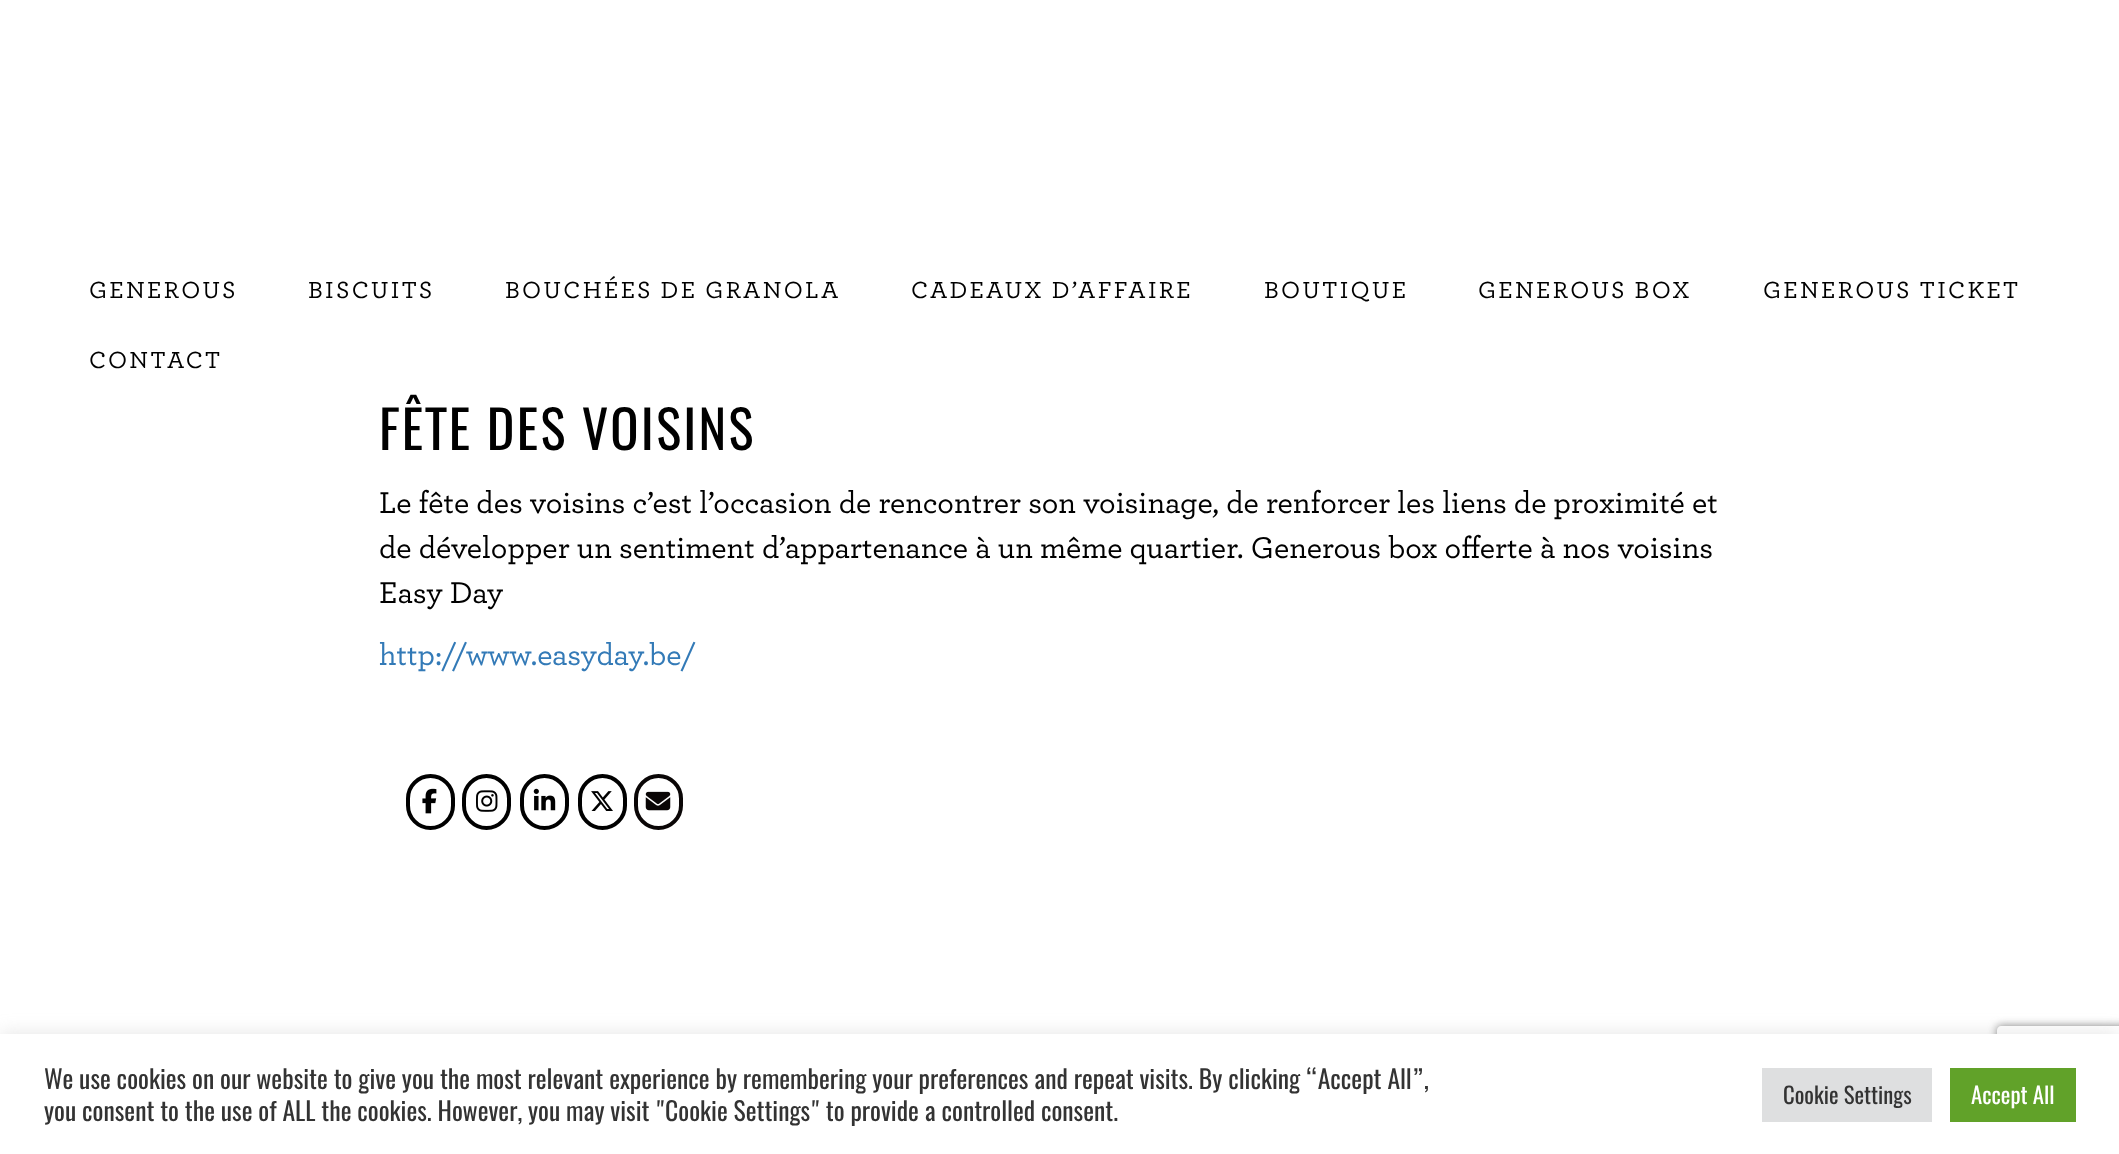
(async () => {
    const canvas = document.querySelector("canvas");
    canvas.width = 2119;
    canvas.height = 1154;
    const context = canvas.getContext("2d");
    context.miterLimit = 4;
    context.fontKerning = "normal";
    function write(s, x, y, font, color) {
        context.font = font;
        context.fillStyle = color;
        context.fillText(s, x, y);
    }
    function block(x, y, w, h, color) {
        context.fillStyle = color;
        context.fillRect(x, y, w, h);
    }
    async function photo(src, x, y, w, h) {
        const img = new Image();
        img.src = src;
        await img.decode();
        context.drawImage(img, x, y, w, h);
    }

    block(0, 0, 2119, 1154, "rgb(255, 255, 255)");
    context.letterSpacing = "2.3px";
    write("GENEROUS", 89, 298, "500 24.5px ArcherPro", "rgb(0, 0, 0)");
    write("BISCUITS", 308, 298, "500 24.5px ArcherPro", "rgb(0, 0, 0)");
    write("BOUCHÉES DE GRANOLA", 505, 298, "500 24.5px ArcherPro", "rgb(0, 0, 0)");
    write("CADEAUX D’AFFAIRE", 911, 298, "500 24.5px ArcherPro", "rgb(0, 0, 0)");
    write("BOUTIQUE", 1264, 298, "500 24.5px ArcherPro", "rgb(0, 0, 0)");
    write("GENEROUS BOX", 1478, 298, "500 24.5px ArcherPro", "rgb(0, 0, 0)");
    write("GENEROUS TICKET", 1763, 298, "500 24.5px ArcherPro", "rgb(0, 0, 0)");
    write("CONTACT", 89, 368, "500 24.5px ArcherPro", "rgb(0, 0, 0)");
    write("FÊTE DES VOISINS", 379, 450, "52.5px Oswald", "rgb(0, 0, 0)");
    context.letterSpacing = "0px";
    write("Le fête des voisins c’est l’occasion de rencontrer son voisinage, de renforcer les liens de proximité et", 379, 513, "500 31.5px ArcherPro", "rgb(0, 0, 0)");
    write("de développer un sentiment d’appartenance à un même quartier. Generous box offerte à nos voisins", 379, 558, "500 31.5px ArcherPro", "rgb(0, 0, 0)");
    write("Easy Day", 379, 603, "500 31.5px ArcherPro", "rgb(0, 0, 0)");
    write("http://www.easyday.be/", 379, 665, "500 31.5px ArcherPro", "rgb(51, 122, 183)");
    context.beginPath();
    context.roundRect(408, 776, 45, 52, 22.5);
    context.strokeStyle = "rgb(0, 0, 0)";
    context.lineWidth = 4;
    context.stroke();
    await photo("media/1.png", 422, 788, 15, 26);
    context.beginPath();
    context.roundRect(464, 776, 45, 52, 22.5);
    context.stroke();
    await photo("media/2.png", 476, 790, 22, 22);
    context.beginPath();
    context.roundRect(522, 776, 45, 52, 22.5);
    context.stroke();
    await photo("media/3.png", 533, 788, 23, 23);
    context.beginPath();
    context.roundRect(580, 776, 45, 52, 22.5);
    context.stroke();
    await photo("media/4.png", 591, 791, 22, 20);
    context.beginPath();
    context.roundRect(636, 776, 45, 52, 22.5);
    context.strokeStyle = "rgb(10, 6, 6)";
    context.stroke();
    await photo("media/5.png", 645, 791, 26, 20);
    context.save();
    context.beginPath();
    context.moveTo(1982, 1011);
    context.lineTo(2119, 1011);
    context.lineTo(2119, 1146);
    context.lineTo(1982, 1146);
    context.closePath();
    context.moveTo(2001, 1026);
    context.lineTo(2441, 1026);
    context.bezierCurveTo(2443, 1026, 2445, 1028, 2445, 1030);
    context.lineTo(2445, 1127);
    context.bezierCurveTo(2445, 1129, 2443, 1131, 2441, 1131);
    context.lineTo(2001, 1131);
    context.bezierCurveTo(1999, 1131, 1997, 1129, 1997, 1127);
    context.lineTo(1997, 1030);
    context.bezierCurveTo(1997, 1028, 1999, 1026, 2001, 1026);
    context.closePath();
    context.clip("evenodd");
    context.fillStyle = "rgb(128, 128, 128)";
    context.filter = "blur(4.5px)";
    context.beginPath();
    context.roundRect(1997, 1026, 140, 105, 4);
    context.fill();
    context.filter = "none";
    context.restore();
    context.fillStyle = "rgba(172, 171, 171, 0.3)";
    context.filter = "blur(9px)";
    context.beginPath();
    context.rect(0, 1033, 2119, 120);
    context.fill();
    context.filter = "none";
    block(0, 1034, 2119, 120, "rgb(255, 255, 255)");
    write("We use cookies on our website to give you the most relevant experience by remembering your preferences and repeat visits. By clicking “Accept All”,", 44, 1089, "25.67px Oswald", "rgb(51, 51, 51)");
    write("you consent to the use of ALL the cookies. However, you may visit \"Cookie Settings\" to provide a controlled consent.", 44, 1121, "25.67px Oswald", "rgb(51, 51, 51)");
    block(1762, 1068, 170, 54, "rgb(222, 223, 224)");
    write("Cookie Settings", 1783, 1104, "22.75px Oswald", "rgb(51, 51, 51)");
    block(1950, 1068, 126, 54, "rgb(97, 162, 41)");
    write("Accept All", 1971, 1104, "22.75px Oswald", "rgb(255, 255, 255)");
})();
